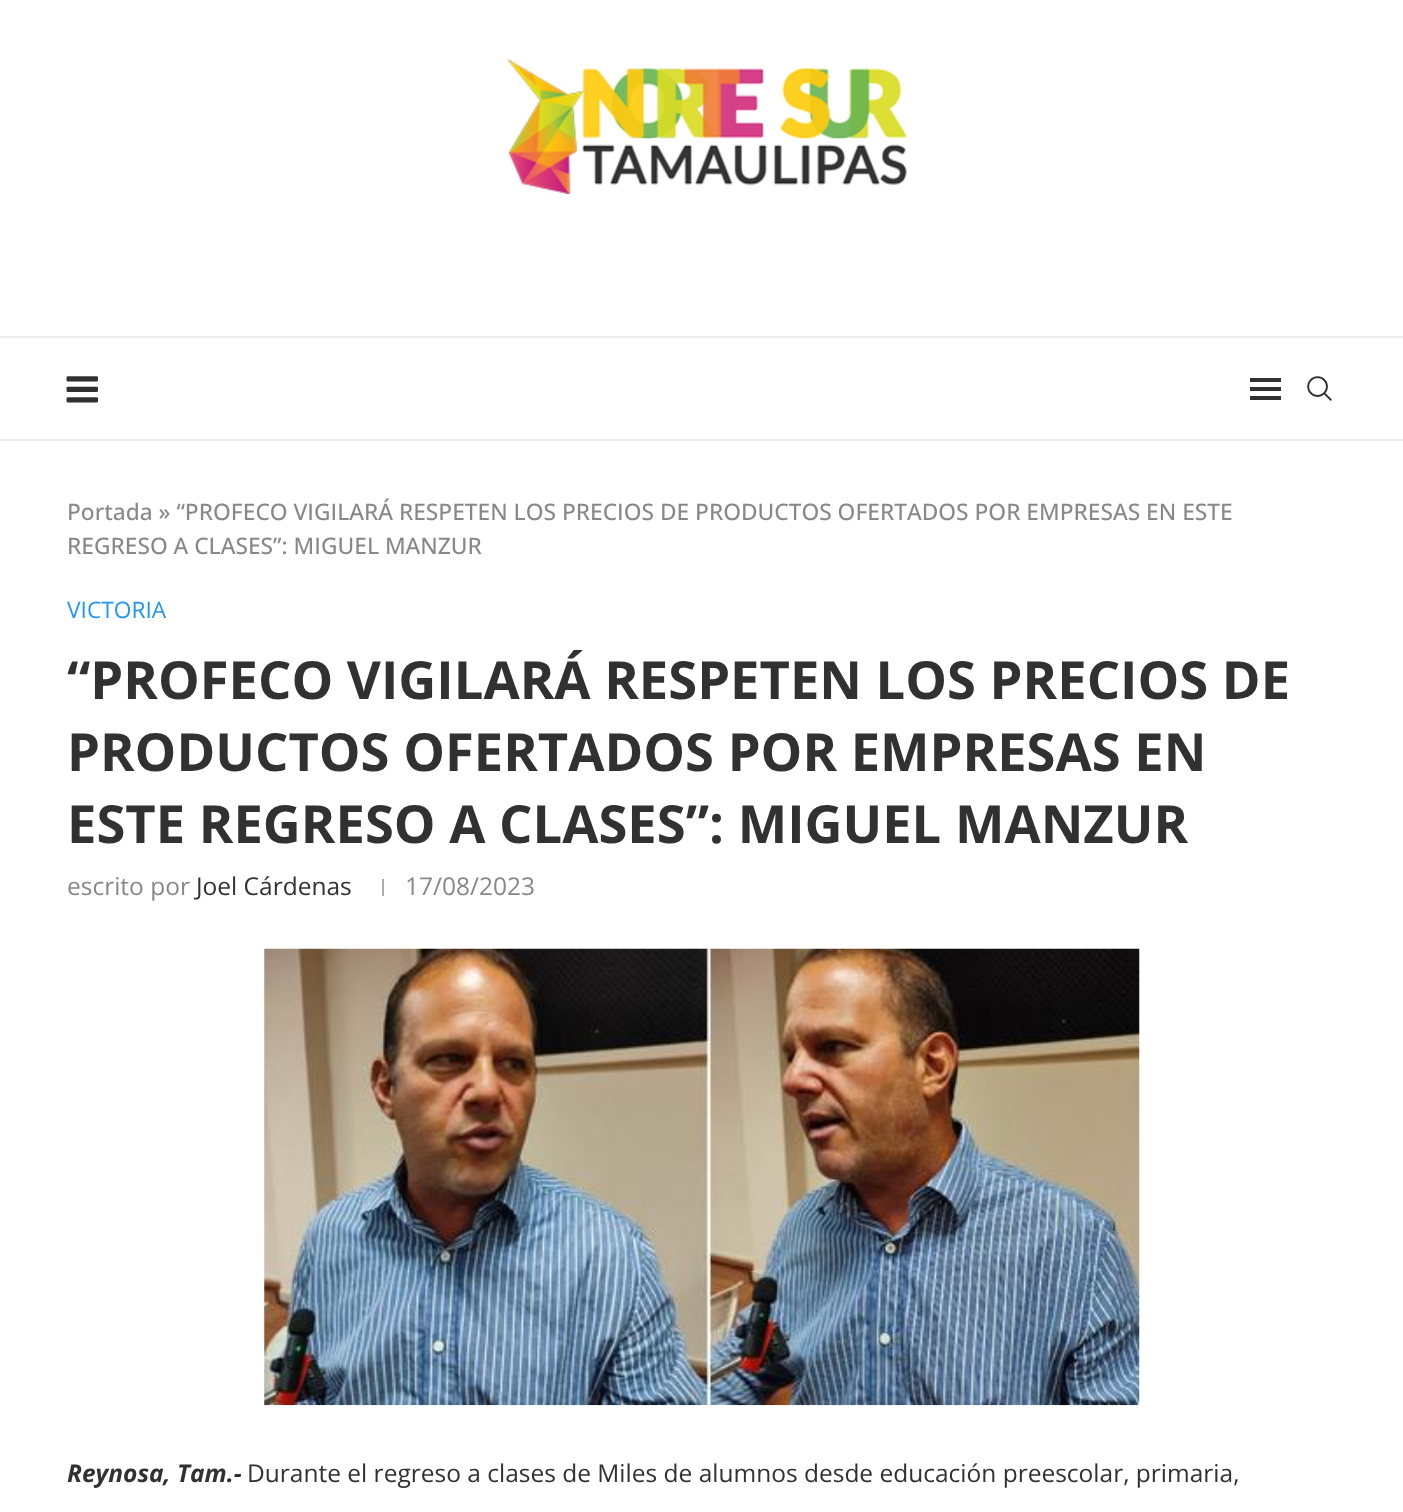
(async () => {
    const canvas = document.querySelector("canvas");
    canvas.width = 1403;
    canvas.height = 1512;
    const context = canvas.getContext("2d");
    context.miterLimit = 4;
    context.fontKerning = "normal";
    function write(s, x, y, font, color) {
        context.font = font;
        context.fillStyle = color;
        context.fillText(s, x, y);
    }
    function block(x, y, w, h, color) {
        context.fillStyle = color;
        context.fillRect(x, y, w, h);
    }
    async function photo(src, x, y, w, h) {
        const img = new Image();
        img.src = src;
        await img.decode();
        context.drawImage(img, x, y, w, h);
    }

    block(0, 0, 1403, 1512, "rgb(255, 255, 255)");
    await photo("media/1.png", 506, 58, 402, 139);
    block(0, 336, 1403, 2, "rgb(236, 236, 236)");
    block(0, 439, 1403, 2, "rgb(236, 236, 236)");
    await photo("media/2.png", 66, 376, 32, 27);
    block(1250, 378, 31, 4, "rgb(49, 49, 49)");
    block(1250, 396, 31, 4, "rgb(49, 49, 49)");
    block(1250, 387, 31, 4, "rgb(49, 49, 49)");
    await photo("media/3.png", 1307, 376, 25, 25);
    write("Portada » “PROFECO VIGILARÁ RESPETEN LOS PRECIOS DE PRODUCTOS OFERTADOS POR EMPRESAS EN ESTE", 67, 520, "500 22.75px Open Sans", "rgb(136, 136, 136)");
    write("REGRESO A CLASES”: MIGUEL MANZUR", 67, 554, "500 22.75px Open Sans", "rgb(136, 136, 136)");
    write("VICTORIA", 67, 618, "22.75px Open Sans", "rgb(33, 150, 243)");
    write("“PROFECO VIGILARÁ RESPETEN LOS PRECIOS DE", 67, 699, "bold 52.5px Open Sans", "rgb(49, 49, 49)");
    write("PRODUCTOS OFERTADOS POR EMPRESAS EN", 67, 771, "bold 52.5px Open Sans", "rgb(49, 49, 49)");
    write("ESTE REGRESO A CLASES”: MIGUEL MANZUR", 67, 843, "bold 52.5px Open Sans", "rgb(49, 49, 49)");
    write("escrito por", 67, 895, "24.5px Open Sans", "rgb(136, 136, 136)");
    write("Joel Cárdenas", 196, 895, "24.5px Open Sans", "rgb(49, 49, 49)");
    block(382, 879, 2, 17, "rgb(172, 172, 172)");
    write("17/08/2023", 405, 895, "24.5px Open Sans", "rgb(136, 136, 136)");
    await photo("media/4.png", 264, 948, 876, 458);
    write("Reynosa, Tam.-", 67, 1482, "italic bold 24.5px Open Sans", "rgb(49, 49, 49)");
    write("Durante el regreso a clases de Miles de alumnos desde educación preescolar, primaria,", 247, 1482, "24.5px Open Sans", "rgb(49, 49, 49)");
})();
